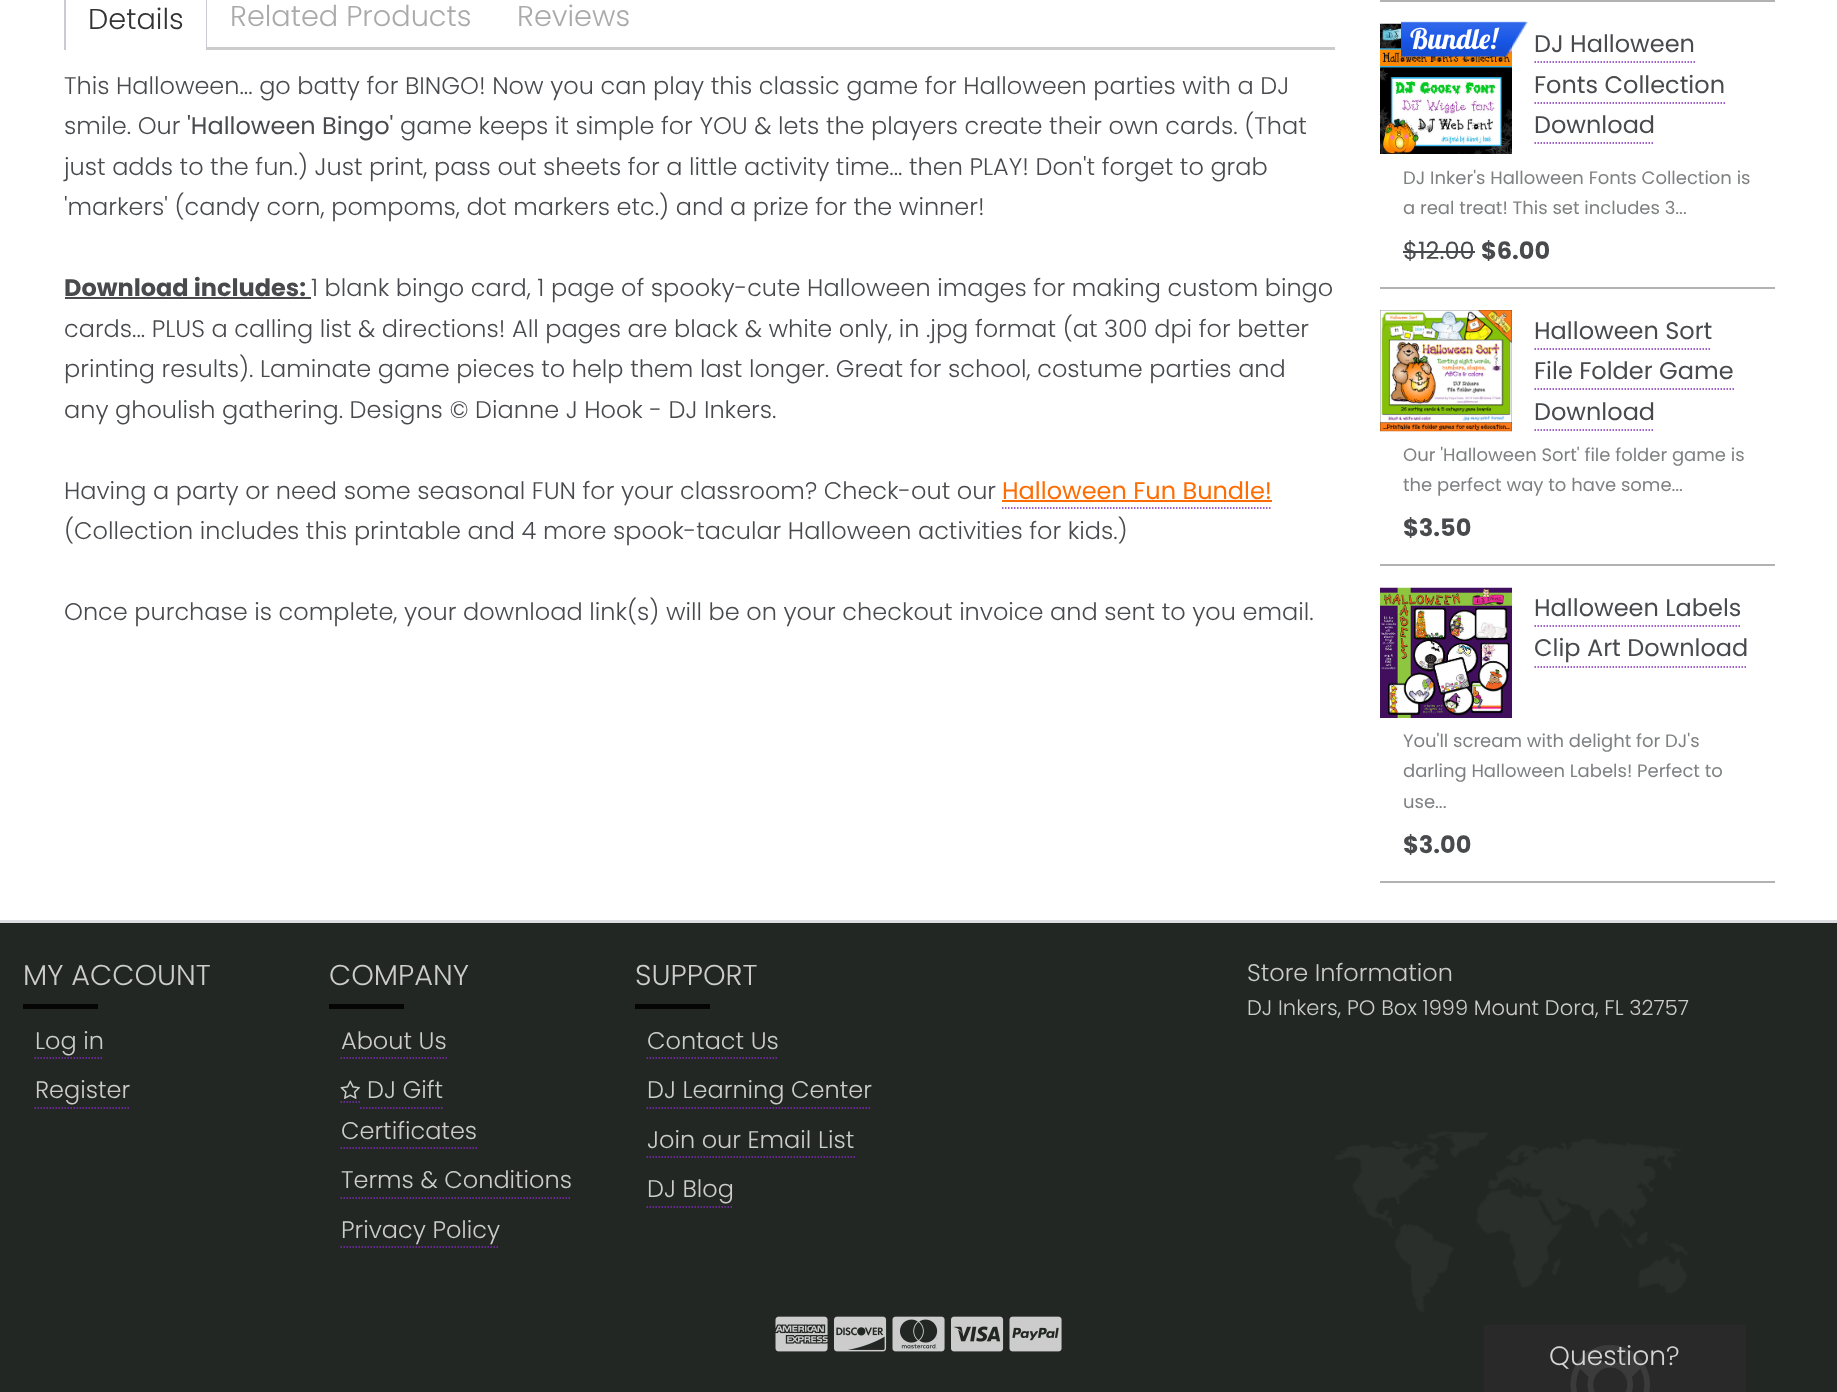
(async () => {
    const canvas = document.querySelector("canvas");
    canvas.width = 1837;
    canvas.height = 1392;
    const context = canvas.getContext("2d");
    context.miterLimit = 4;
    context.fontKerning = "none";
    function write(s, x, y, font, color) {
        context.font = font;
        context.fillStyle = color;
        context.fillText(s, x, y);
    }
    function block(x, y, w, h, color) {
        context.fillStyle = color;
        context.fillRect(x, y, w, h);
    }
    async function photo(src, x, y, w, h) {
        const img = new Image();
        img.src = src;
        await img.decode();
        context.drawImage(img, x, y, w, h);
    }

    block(0, 0, 1837, 1392, "rgb(255, 255, 255)");
    block(207, 47, 1128, 3, "rgb(204, 204, 204)");
    context.fillStyle = "rgb(201, 203, 208)";
    context.beginPath();
    context.moveTo(74, -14);
    context.lineTo(198, -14);
    context.bezierCurveTo(203, -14, 207, -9, 207, -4);
    context.lineTo(207, 50);
    context.lineTo(64, 50);
    context.lineTo(64, -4);
    context.bezierCurveTo(64, -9, 69, -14, 74, -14);
    context.closePath();
    context.moveTo(74, -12);
    context.lineTo(198, -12);
    context.bezierCurveTo(202, -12, 206, -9, 206, -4);
    context.lineTo(206, 50);
    context.lineTo(66, 50);
    context.lineTo(66, -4);
    context.bezierCurveTo(66, -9, 69, -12, 74, -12);
    context.closePath();
    context.fill("evenodd");
    write("Details", 88, 29, "300 28.75px Poppins", "rgb(51, 51, 51)");
    write("Related Products", 230, 26, "300 28.75px Poppins", "rgb(170, 170, 170)");
    write("Reviews", 517, 26, "300 28.75px Poppins", "rgb(170, 170, 170)");
    write("This Halloween... go batty for BINGO! Now you can play this classic game for Halloween parties with a DJ", 64, 94, "300 24px Poppins", "rgb(72, 74, 77)");
    write("smile. Our", 64, 134, "300 24px Poppins", "rgb(72, 74, 77)");
    write("'Halloween Bingo'", 187, 134, "24px Poppins", "rgb(72, 74, 77)");
    write("game keeps it simple for YOU & lets the players create their own cards. (That", 400, 134, "300 24px Poppins", "rgb(72, 74, 77)");
    write("just adds to the fun.) Just print, pass out sheets for a little activity time... then PLAY! Don't forget to grab", 64, 175, "300 24px Poppins", "rgb(72, 74, 77)");
    write("'markers' (candy corn, pompoms, dot markers etc.) and a prize for the winner!", 64, 215, "300 24px Poppins", "rgb(72, 74, 77)");
    write("Download includes:", 64, 296, "bold 24px Poppins", "rgb(72, 74, 77)");
    block(65, 297, 246, 2, "rgb(72, 74, 77)");
    write("1 blank bingo card, 1 page of spooky-cute Halloween images for making custom bingo", 311, 296, "300 24px Poppins", "rgb(72, 74, 77)");
    write("cards... PLUS a calling list & directions! All pages are black & white only, in .jpg format (at 300 dpi for better", 64, 337, "300 24px Poppins", "rgb(72, 74, 77)");
    write("printing results). Laminate game pieces to help them last longer. Great for school, costume parties and", 64, 377, "300 24px Poppins", "rgb(72, 74, 77)");
    write("any ghoulish gathering. Designs © Dianne J Hook - DJ Inkers.", 64, 418, "300 24px Poppins", "rgb(72, 74, 77)");
    write("Having a party or need some seasonal FUN for your classroom? Check-out our", 64, 499, "300 24px Poppins", "rgb(72, 74, 77)");
    write("Halloween Fun Bundle!", 1002, 499, "24px Poppins", "rgb(253, 109, 3)");
    context.beginPath();
    context.moveTo(1002, 508);
    context.lineTo(1272, 508);
    context.strokeStyle = "rgb(128, 45, 181)";
    context.lineWidth = 1.5;
    context.setLineDash([1.5, 1.5]);
    context.stroke();
    block(1002, 500, 270, 2, "rgb(253, 109, 3)");
    write("(Collection includes this printable and 4 more spook-tacular Halloween activities for kids.)", 64, 539, "300 24px Poppins", "rgb(72, 74, 77)");
    write("Once purchase is complete, your download link(s) will be on your checkout invoice and sent to you email.", 64, 620, "300 24px Poppins", "rgb(72, 74, 77)");
    block(1380, 0, 395, 2, "rgb(178, 178, 178)");
    block(1380, 287, 395, 2, "rgb(178, 178, 178)");
    await photo("media/1.png", 1380, 23, 132, 131);
    await photo("media/2.png", 1401, 21, 127, 36);
    write("Bundle!", 1410, 49, "28.5px Lobster", "rgb(255, 255, 255)");
    write("DJ Halloween", 1534, 52, "24px Poppins", "rgb(72, 74, 77)");
    context.beginPath();
    context.moveTo(1534.5, 62);
    context.lineTo(1695, 62);
    context.stroke();
    write("Fonts Collection", 1534, 93, "24px Poppins", "rgb(72, 74, 77)");
    context.beginPath();
    context.moveTo(1534.5, 103);
    context.lineTo(1725, 103);
    context.stroke();
    write("Download", 1534, 133, "24px Poppins", "rgb(72, 74, 77)");
    context.beginPath();
    context.moveTo(1534.5, 143);
    context.lineTo(1654.5, 143);
    context.stroke();
    write("DJ Inker's Halloween Fonts Collection is", 1403, 184, "18px Poppins", "rgb(127, 128, 130)");
    write("a real treat! This set includes 3...", 1403, 214, "18px Poppins", "rgb(127, 128, 130)");
    write("$12.00", 1403, 259, "24px Poppins", "rgb(72, 74, 77)");
    block(1403, 251, 72, 2, "rgb(72, 74, 77)");
    write("$6.00", 1481, 259, "bold 24px Poppins", "rgb(72, 74, 77)");
    block(1380, 564, 395, 2, "rgb(178, 178, 178)");
    await photo("media/3.png", 1380, 310, 132, 122);
    write("Halloween Sort", 1534, 339, "24px Poppins", "rgb(72, 74, 77)");
    context.beginPath();
    context.moveTo(1534.5, 349);
    context.lineTo(1711.5, 349);
    context.stroke();
    write("File Folder Game", 1534, 379, "24px Poppins", "rgb(72, 74, 77)");
    context.beginPath();
    context.moveTo(1534.5, 389);
    context.lineTo(1734, 389);
    context.stroke();
    write("Download", 1534, 420, "24px Poppins", "rgb(72, 74, 77)");
    context.beginPath();
    context.moveTo(1534.5, 430);
    context.lineTo(1654.5, 430);
    context.stroke();
    write("Our 'Halloween Sort' file folder game is", 1403, 461, "18px Poppins", "rgb(127, 128, 130)");
    write("the perfect way to have some...", 1403, 491, "18px Poppins", "rgb(127, 128, 130)");
    write("$3.50", 1403, 536, "bold 24px Poppins", "rgb(72, 74, 77)");
    block(1380, 881, 395, 2, "rgb(178, 178, 178)");
    await photo("media/4.png", 1380, 587, 132, 131);
    write("Halloween Labels", 1534, 616, "24px Poppins", "rgb(72, 74, 77)");
    context.beginPath();
    context.moveTo(1534.5, 626);
    context.lineTo(1741.5, 626);
    context.stroke();
    write("Clip Art Download", 1534, 656, "24px Poppins", "rgb(72, 74, 77)");
    context.beginPath();
    context.moveTo(1534.5, 667);
    context.lineTo(1747.5, 667);
    context.stroke();
    write("You'll scream with delight for DJ's", 1403, 747, "18px Poppins", "rgb(127, 128, 130)");
    write("darling Halloween Labels! Perfect to", 1403, 777, "18px Poppins", "rgb(127, 128, 130)");
    write("use...", 1403, 808, "18px Poppins", "rgb(127, 128, 130)");
    write("$3.00", 1403, 853, "bold 24px Poppins", "rgb(72, 74, 77)");
    block(0, 923, 1837, 469, "rgb(34, 39, 36)");
    await photo("media/5.png", 1335, 1131, 353, 181);
    block(0, 920, 1837, 3, "rgb(220, 221, 225)");
    write("MY ACCOUNT", 23, 985, "300 28.75px Poppins", "rgb(204, 204, 204)");
    block(23, 1004, 75, 5, "rgb(5, 5, 5)");
    write("Log in", 35, 1049, "300 24px Poppins", "rgb(204, 204, 204)");
    context.beginPath();
    context.moveTo(34.5, 1058);
    context.lineTo(103.5, 1058);
    context.stroke();
    write("Register", 35, 1098, "300 24px Poppins", "rgb(204, 204, 204)");
    context.beginPath();
    context.moveTo(34.5, 1108);
    context.lineTo(129, 1108);
    context.stroke();
    write("COMPANY", 329, 985, "300 28.75px Poppins", "rgb(204, 204, 204)");
    block(329, 1004, 75, 5, "rgb(5, 5, 5)");
    write("About Us", 341, 1049, "300 24px Poppins", "rgb(204, 204, 204)");
    context.beginPath();
    context.moveTo(340.5, 1058);
    context.lineTo(447, 1058);
    context.stroke();
    context.beginPath();
    context.moveTo(340.5, 1102);
    context.lineTo(360, 1102);
    context.stroke();
    context.beginPath();
    context.moveTo(360, 1108);
    context.lineTo(442.5, 1108);
    context.stroke();
    context.beginPath();
    context.moveTo(340.5, 1148);
    context.lineTo(477, 1148);
    context.stroke();
    await photo("media/6.png", 340, 1080, 20, 19);
    write("DJ Gift", 367, 1098, "300 24px Poppins", "rgb(204, 204, 204)");
    write("Certificates", 341, 1139, "300 24px Poppins", "rgb(204, 204, 204)");
    write("Terms & Conditions", 341, 1188, "300 24px Poppins", "rgb(204, 204, 204)");
    context.beginPath();
    context.moveTo(340.5, 1198);
    context.lineTo(571.5, 1198);
    context.stroke();
    write("Privacy Policy", 341, 1238, "300 24px Poppins", "rgb(204, 204, 204)");
    context.beginPath();
    context.moveTo(340.5, 1247);
    context.lineTo(499.5, 1247);
    context.stroke();
    write("SUPPORT", 635, 985, "300 28.75px Poppins", "rgb(204, 204, 204)");
    block(635, 1004, 75, 5, "rgb(5, 5, 5)");
    write("Contact Us", 647, 1049, "300 24px Poppins", "rgb(204, 204, 204)");
    context.beginPath();
    context.moveTo(646.5, 1058);
    context.lineTo(778.5, 1058);
    context.stroke();
    write("DJ Learning Center", 647, 1098, "300 24px Poppins", "rgb(204, 204, 204)");
    context.beginPath();
    context.moveTo(646.5, 1108);
    context.lineTo(871.5, 1108);
    context.stroke();
    write("Join our Email List", 647, 1148, "300 24px Poppins", "rgb(204, 204, 204)");
    context.beginPath();
    context.moveTo(646.5, 1157);
    context.lineTo(855, 1157);
    context.stroke();
    write("DJ Blog", 647, 1197, "300 24px Poppins", "rgb(204, 204, 204)");
    context.beginPath();
    context.moveTo(646.5, 1207);
    context.lineTo(733.5, 1207);
    context.stroke();
    write("Store Information", 1247, 981, "300 24px Poppins", "rgb(204, 204, 204)");
    write("DJ Inkers, PO Box 1999 Mount Dora, FL 32757", 1247, 1015, "300 21px Poppins", "rgb(204, 204, 204)");
    await photo("media/7.png", 775, 1316, 53, 36);
    await photo("media/8.png", 834, 1316, 53, 36);
    await photo("media/9.png", 892, 1316, 53, 36);
    await photo("media/10.png", 951, 1316, 53, 36);
    await photo("media/11.png", 1009, 1316, 53, 36);
    block(1484, 1325, 262, 67, "rgb(40, 41, 40)");
    await photo("media/12.png", 1570, 1345, 80, 47);
    write("Question?", 1549, 1365, "300 26.5px Poppins", "rgb(211, 212, 211)");
})();
